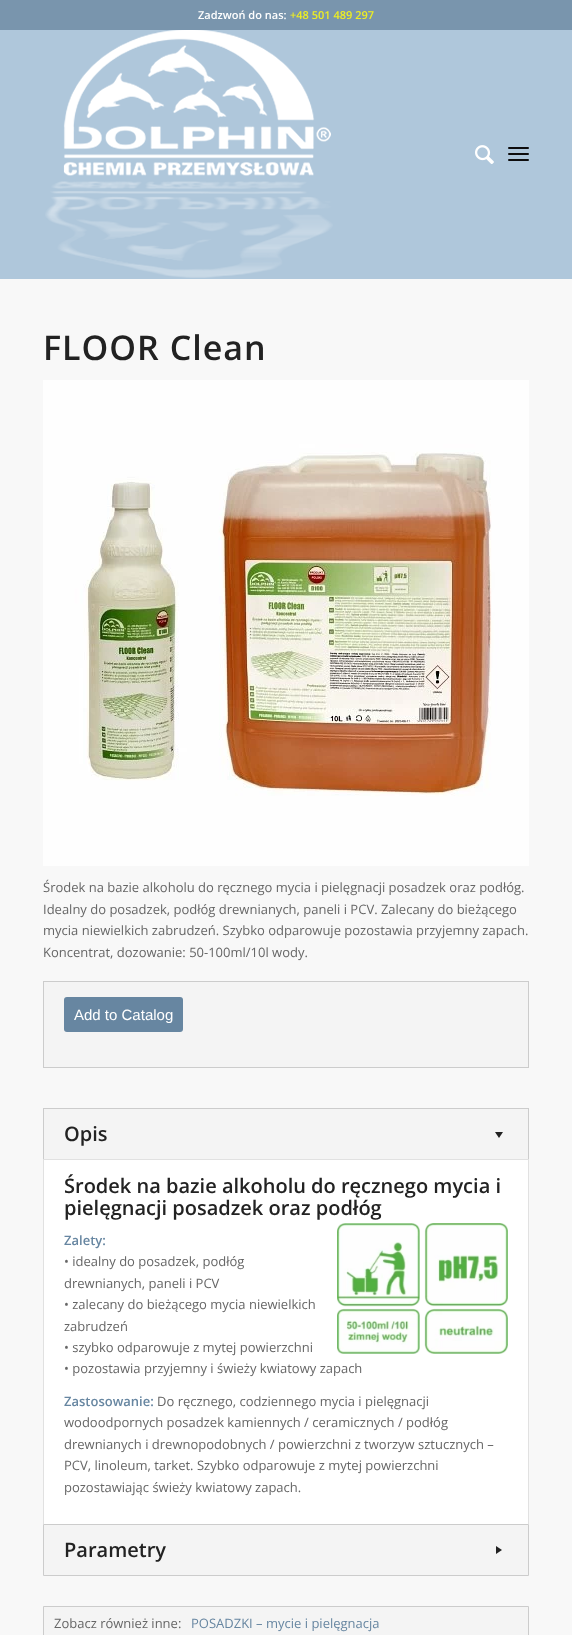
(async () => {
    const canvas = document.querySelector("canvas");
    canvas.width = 572;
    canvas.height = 1635;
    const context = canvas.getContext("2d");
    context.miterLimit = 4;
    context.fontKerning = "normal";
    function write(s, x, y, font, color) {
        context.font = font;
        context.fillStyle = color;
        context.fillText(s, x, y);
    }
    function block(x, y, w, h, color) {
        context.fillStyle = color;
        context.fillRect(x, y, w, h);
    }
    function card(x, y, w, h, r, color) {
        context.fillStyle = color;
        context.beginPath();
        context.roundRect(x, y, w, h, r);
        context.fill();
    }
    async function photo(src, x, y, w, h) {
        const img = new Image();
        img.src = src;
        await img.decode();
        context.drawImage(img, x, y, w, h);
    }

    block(0, 0, 572, 1635, "rgb(248, 248, 248)");
    block(0, 0, 572, 30, "rgb(121, 149, 173)");
    write("Zadzwoń do nas:", 198, 19, "600 11px Open Sans", "rgb(255, 255, 255)");
    write("+48 501 489 297", 290, 19, "600 11px Open Sans", "rgb(238, 238, 34)");
    block(0, 30, 572, 249, "rgb(175, 199, 219)");
    await photo("media/1.png", 45, 30, 288, 248);
    await photo("media/2.png", 475, 145, 19, 19);
    card(508, 153, 21, 2, 1, "rgb(13, 12, 13)");
    card(508, 147, 21, 2, 1, "rgb(13, 12, 13)");
    card(508, 159, 21, 2, 1, "rgb(13, 12, 13)");
    context.letterSpacing = "1px";
    write("FLOOR Clean", 43, 360, "600 34px Open Sans", "rgb(34, 34, 34)");
    await photo("media/3.png", 43, 380, 486, 486);
    block(43, 981, 486, 1, "rgb(204, 204, 204)");
    context.letterSpacing = "0px";
    write("Środek na bazie alkoholu do ręcznego mycia i pielęgnacji posadzek oraz podłóg.", 43, 892, "13px Open Sans", "rgb(102, 102, 102)");
    write("Idealny do posadzek, podłóg drewnianych, paneli i PCV. Zalecany do bieżącego", 43, 914, "13px Open Sans", "rgb(102, 102, 102)");
    write("mycia niewielkich zabrudzeń. Szybko odparowuje pozostawia przyjemny zapach.", 43, 935, "13px Open Sans", "rgb(102, 102, 102)");
    write("Koncentrat, dozowanie: 50-100ml/10l wody.", 43, 957, "13px Open Sans", "rgb(102, 102, 102)");
    block(44, 982, 484, 85, "rgb(244, 244, 244)");
    block(528, 982, 1, 86, "rgb(204, 204, 204)");
    block(43, 1067, 486, 1, "rgb(204, 204, 204)");
    block(43, 982, 1, 86, "rgb(204, 204, 204)");
    card(64, 997, 119, 35, 3, "rgb(103, 134, 161)");
    write("Add to Catalog", 74, 1020, "15px Liberation Sans", "rgb(255, 255, 255)");
    block(44, 1109, 484, 50, "rgb(244, 244, 244)");
    block(43, 1108, 486, 1, "rgb(204, 204, 204)");
    block(528, 1108, 1, 51, "rgb(204, 204, 204)");
    block(43, 1108, 1, 51, "rgb(204, 204, 204)");
    write("Opis", 64, 1141, "600 20px Open Sans", "rgb(34, 34, 34)");
    context.beginPath();
    context.moveTo(503, 1132);
    context.lineTo(499, 1138);
    context.lineTo(495, 1132);
    context.closePath();
    context.fill();
    block(44, 1160, 484, 364, "rgb(255, 255, 255)");
    block(43, 1159, 486, 1, "rgb(225, 225, 225)");
    block(528, 1159, 1, 365, "rgb(225, 225, 225)");
    block(43, 1159, 1, 365, "rgb(225, 225, 225)");
    write("Środek na bazie alkoholu do ręcznego mycia i", 64, 1193, "600 20px Open Sans", "rgb(34, 34, 34)");
    write("pielęgnacji posadzek oraz podłóg", 64, 1215, "600 20px Open Sans", "rgb(34, 34, 34)");
    await photo("media/4.png", 337, 1223, 171, 131);
    write("Zalety:", 64, 1245, "600 13px Open Sans", "rgb(103, 134, 161)");
    write("• idealny do posadzek, podłóg", 64, 1266, "13px Open Sans", "rgb(102, 102, 102)");
    write("drewnianych, paneli i PCV", 64, 1288, "13px Open Sans", "rgb(102, 102, 102)");
    write("• zalecany do bieżącego mycia niewielkich", 64, 1309, "13px Open Sans", "rgb(102, 102, 102)");
    write("zabrudzeń", 64, 1331, "13px Open Sans", "rgb(102, 102, 102)");
    write("• szybko odparowuje z mytej powierzchni", 64, 1352, "13px Open Sans", "rgb(102, 102, 102)");
    write("• pozostawia przyjemny i świeży kwiatowy zapach", 64, 1373, "13px Open Sans", "rgb(102, 102, 102)");
    write("Zastosowanie:", 64, 1406, "600 13px Open Sans", "rgb(103, 134, 161)");
    write("Do ręcznego, codziennego mycia i pielęgnacji", 157, 1406, "13px Open Sans", "rgb(102, 102, 102)");
    write("wodoodpornych posadzek kamiennych / ceramicznych / podłóg", 64, 1427, "13px Open Sans", "rgb(102, 102, 102)");
    write("drewnianych i drewnopodobnych / powierzchni z tworzyw sztucznych –", 64, 1449, "13px Open Sans", "rgb(102, 102, 102)");
    write("PCV, linoleum, tarket. Szybko odparowuje z mytej powierzchni", 64, 1470, "13px Open Sans", "rgb(102, 102, 102)");
    write("pozostawiając świeży kwiatowy zapach.", 64, 1492, "13px Open Sans", "rgb(102, 102, 102)");
    context.fillStyle = "rgb(244, 244, 244)";
    context.beginPath();
    context.rect(43.5, 1524.5, 485, 51);
    context.fill();
    context.strokeStyle = "rgb(204, 204, 204)";
    context.stroke();
    write("Parametry", 64, 1557, "600 20px Open Sans", "rgb(34, 34, 34)");
    context.beginPath();
    context.moveTo(496, 1546);
    context.lineTo(502, 1550);
    context.lineTo(496, 1554);
    context.closePath();
    context.fill();
    context.fillStyle = "rgb(244, 244, 244)";
    context.beginPath();
    context.rect(43.5, 1606.5, 485, 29);
    context.fill();
    context.stroke();
    write("Zobacz również inne:", 54, 1628, "13px Open Sans", "rgb(102, 102, 102)");
    write("POSADZKI – mycie i pielęgnacja", 191, 1628, "13px Open Sans", "rgb(103, 134, 161)");
})();
